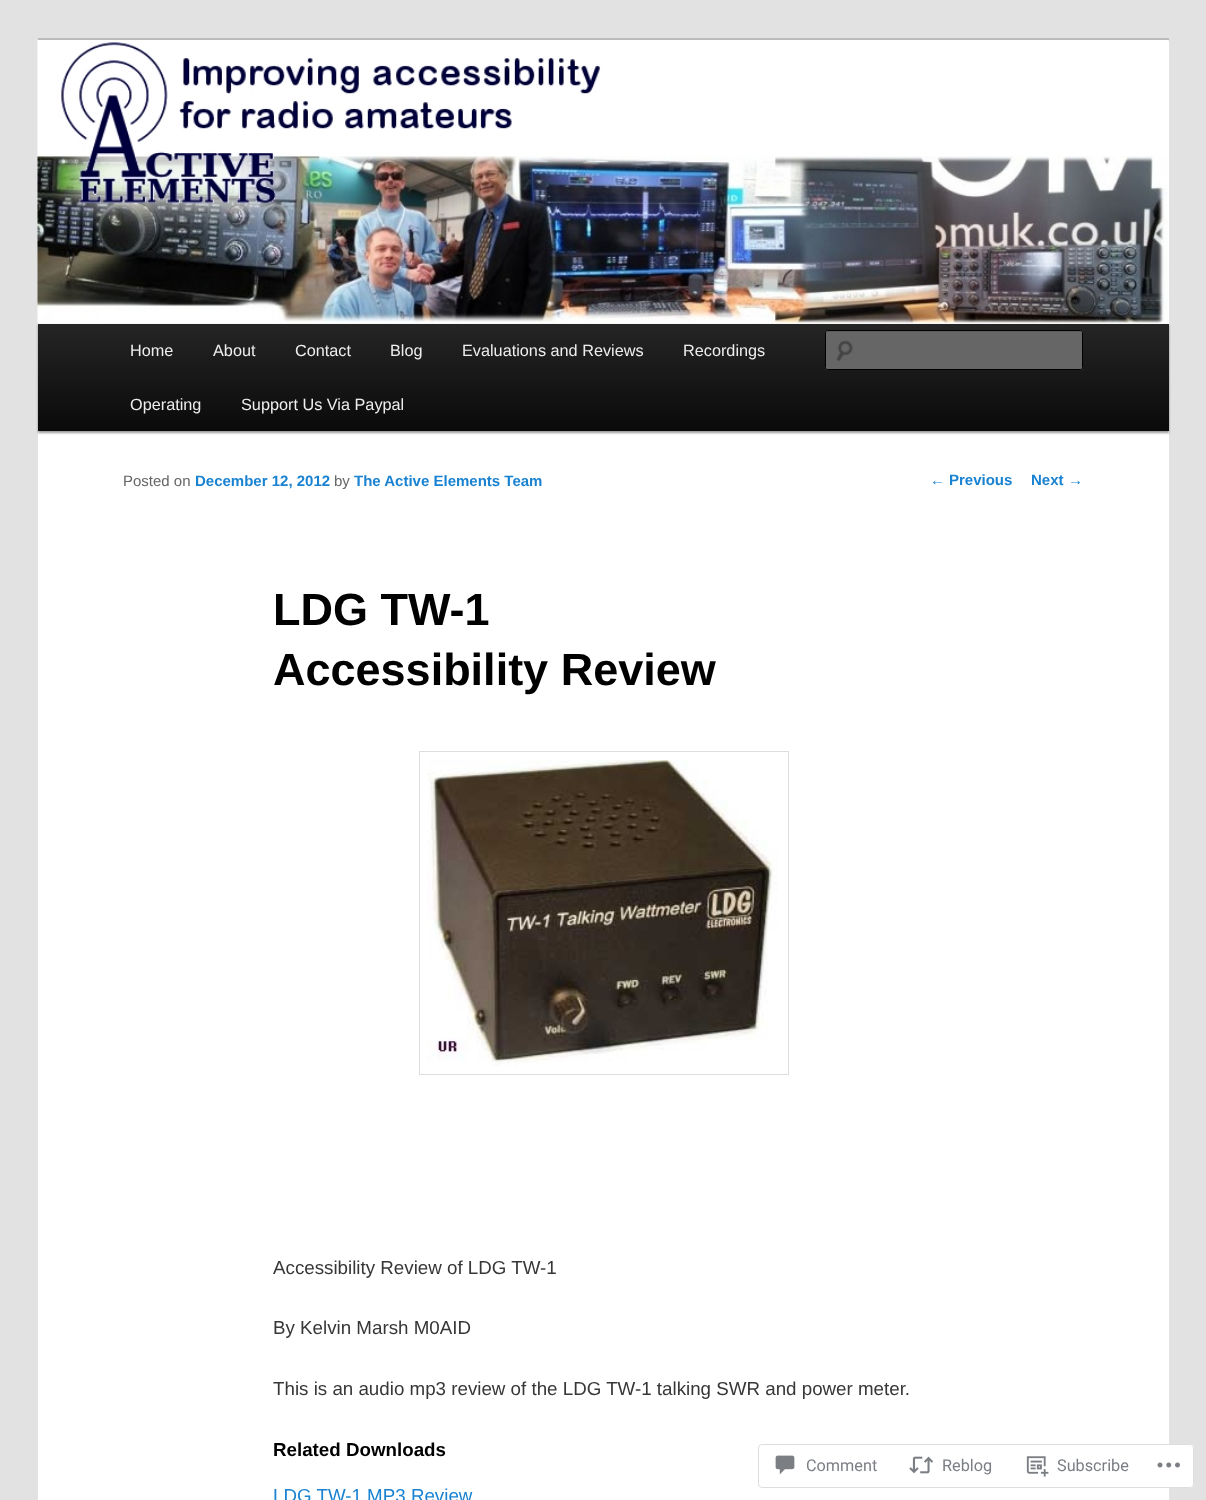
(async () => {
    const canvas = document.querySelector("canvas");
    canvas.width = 1206;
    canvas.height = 1500;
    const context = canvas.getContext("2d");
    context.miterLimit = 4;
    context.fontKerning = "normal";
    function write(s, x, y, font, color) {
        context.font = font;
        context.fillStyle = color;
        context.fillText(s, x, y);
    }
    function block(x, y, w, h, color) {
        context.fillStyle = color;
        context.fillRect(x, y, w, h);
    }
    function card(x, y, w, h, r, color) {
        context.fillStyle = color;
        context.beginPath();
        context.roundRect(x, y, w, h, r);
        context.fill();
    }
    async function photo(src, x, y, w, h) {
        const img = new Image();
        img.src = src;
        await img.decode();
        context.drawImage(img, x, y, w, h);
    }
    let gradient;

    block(0, 0, 1206, 1500, "rgb(226, 226, 226)");
    block(38, 41, 1131, 1459, "rgb(255, 255, 255)");
    block(38, 38, 1131, 3, "rgb(187, 187, 187)");
    context.fillStyle = "rgba(0, 0, 0, 0.4)";
    context.filter = "blur(1px)";
    context.beginPath();
    context.rect(38, 325, 1131, 108);
    context.fill();
    context.filter = "none";
    await photo("media/1.png", 37, 40, 1132, 283);
    gradient = context.createLinearGradient(603, 324, 603, 431);
    gradient.addColorStop(0, "rgb(37, 37, 37)");
    gradient.addColorStop(1, "rgb(10, 10, 10)");
    context.fillStyle = gradient;
    context.fillRect(38, 324, 1131, 107);
    write("Home", 130, 356, "16.25px Liberation Sans", "rgb(238, 238, 238)");
    write("About", 213, 356, "16.25px Liberation Sans", "rgb(238, 238, 238)");
    write("Contact", 295, 356, "16.25px Liberation Sans", "rgb(238, 238, 238)");
    write("Blog", 390, 356, "16.25px Liberation Sans", "rgb(238, 238, 238)");
    write("Evaluations and Reviews", 462, 356, "16.25px Liberation Sans", "rgb(238, 238, 238)");
    write("Recordings", 683, 356, "16.25px Liberation Sans", "rgb(238, 238, 238)");
    write("Operating", 130, 410, "16.25px Liberation Sans", "rgb(238, 238, 238)");
    write("Support Us Via Paypal", 241, 410, "16.25px Liberation Sans", "rgb(238, 238, 238)");
    card(825, 330, 258, 40, 2.5, "rgb(102, 102, 102)");
    await photo("media/2.png", 836, 340, 17, 22);
    context.fillStyle = "rgb(92, 92, 92)";
    context.beginPath();
    context.moveTo(828, 332);
    context.lineTo(1080, 332);
    context.bezierCurveTo(1081, 332, 1081, 333, 1081, 334);
    context.lineTo(1081, 331);
    context.lineTo(827, 331);
    context.bezierCurveTo(826, 331, 826, 333, 826, 334);
    context.bezierCurveTo(826, 333, 827, 332, 828, 332);
    context.closePath();
    context.fill();
    context.beginPath();
    context.roundRect(825.5, 330.5, 257, 39, 2);
    context.strokeStyle = "rgb(0, 0, 0)";
    context.stroke();
    write("Posted on", 123, 486, "15px Liberation Sans", "rgb(102, 102, 102)");
    write("December 12, 2012", 195, 486, "bold 15px Liberation Sans", "rgb(25, 130, 209)");
    write("by", 334, 486, "15px Liberation Sans", "rgb(102, 102, 102)");
    write("The Active Elements Team", 354, 486, "bold 15px Liberation Sans", "rgb(25, 130, 209)");
    write("LDG TW-1", 273, 625, "bold 45px Liberation Sans", "rgb(0, 0, 0)");
    write("Accessibility Review", 273, 685, "bold 45px Liberation Sans", "rgb(0, 0, 0)");
    context.strokeStyle = "rgb(221, 221, 221)";
    context.strokeRect(419.5, 751.5, 369, 323);
    await photo("media/3.png", 427, 760, 351, 306);
    write("Accessibility Review of LDG TW-1", 273, 1274, "18.75px Liberation Sans", "rgb(55, 55, 55)");
    write("By Kelvin Marsh M0AID", 273, 1334, "18.75px Liberation Sans", "rgb(55, 55, 55)");
    write("This is an audio mp3 review of the LDG TW-1 talking SWR and power meter.", 273, 1395, "18.75px Liberation Sans", "rgb(55, 55, 55)");
    write("Related Downloads", 273, 1456, "bold 18.75px Liberation Sans", "rgb(0, 0, 0)");
    write("LDG TW-1 MP3 Review", 273, 1502, "18.75px Liberation Sans", "rgb(25, 130, 209)");
    write("←", 930, 485, "15px Liberation Sans", "rgb(25, 130, 209)");
    write("Previous", 949, 485, "bold 15px Liberation Sans", "rgb(25, 130, 209)");
    write("Next", 1031, 485, "bold 15px Liberation Sans", "rgb(25, 130, 209)");
    write("→", 1068, 485, "15px Liberation Sans", "rgb(25, 130, 209)");
    card(758, 1444, 436, 44, 4, "rgba(255, 255, 255, 0.98)");
    context.beginPath();
    context.roundRect(758.5, 1444.5, 435, 43, 3.5);
    context.strokeStyle = "rgba(220, 220, 222, 0.98)";
    context.stroke();
    await photo("media/4.png", 775, 1455, 20, 20);
    write("Comment", 806, 1471, "16.25px Roboto", "rgb(123, 127, 133)");
    await photo("media/5.png", 909, 1456, 25, 18);
    write("Reblog", 942, 1471, "16.25px Roboto", "rgb(123, 127, 133)");
    await photo("media/6.png", 1026, 1456, 23, 21);
    write("Subscribe", 1057, 1471, "16.25px Roboto", "rgb(123, 127, 133)");
    await photo("media/7.png", 1157, 1462, 23, 6);
})();
